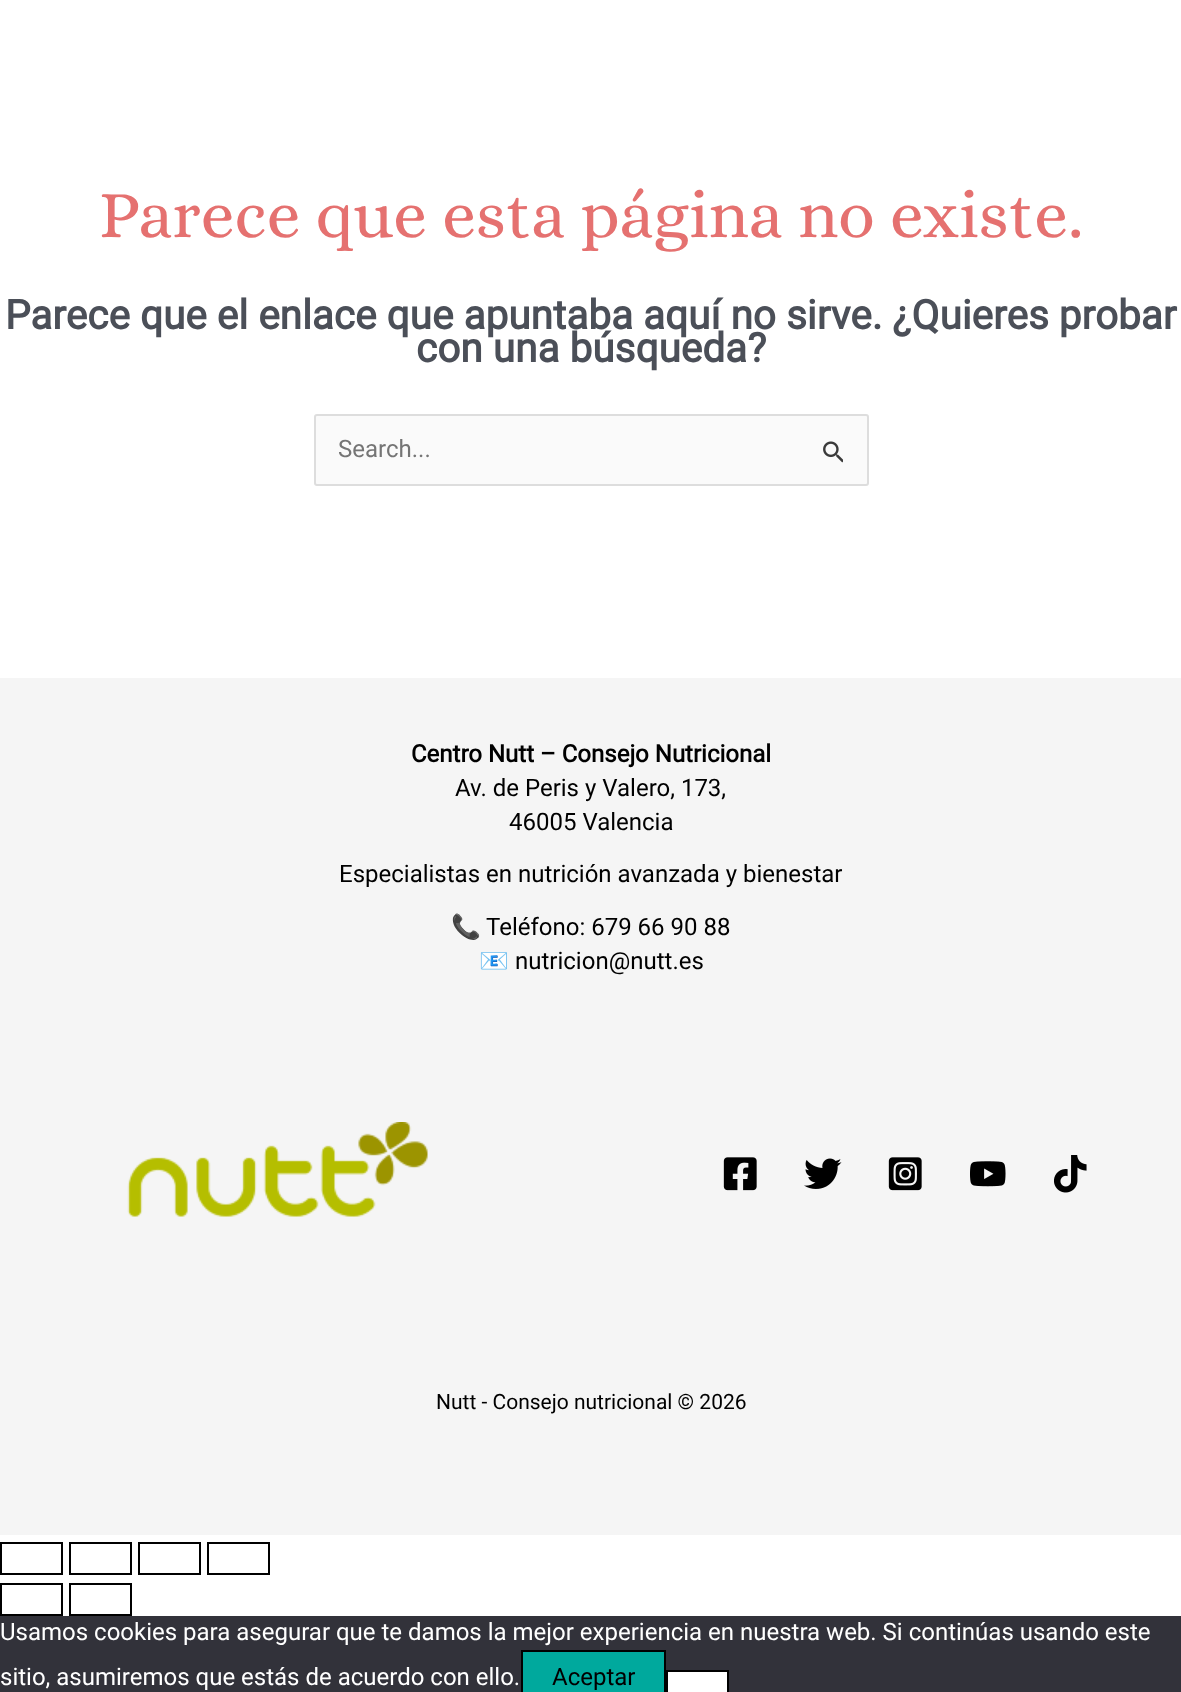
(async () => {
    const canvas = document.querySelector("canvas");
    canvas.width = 1181;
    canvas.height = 1692;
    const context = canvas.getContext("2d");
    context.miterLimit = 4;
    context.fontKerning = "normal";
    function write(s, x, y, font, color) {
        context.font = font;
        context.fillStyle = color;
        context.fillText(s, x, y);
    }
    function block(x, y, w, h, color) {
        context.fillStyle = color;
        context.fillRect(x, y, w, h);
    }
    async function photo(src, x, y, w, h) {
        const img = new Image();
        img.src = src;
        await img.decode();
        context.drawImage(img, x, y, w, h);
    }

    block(0, 0, 1181, 1692, "rgb(255, 255, 255)");
    write("Parece que esta página no existe.", 99, 237, "67.5px Alice", "rgb(229, 113, 112)");
    write("Parece que el enlace que apuntaba aquí no sirve. ¿Quieres probar", 5, 329, "bold 40.5px Roboto", "rgb(75, 79, 88)");
    write("con una búsqueda?", 416, 362, "bold 40.5px Roboto", "rgb(75, 79, 88)");
    context.fillStyle = "rgb(250, 250, 250)";
    context.beginPath();
    context.roundRect(315, 415, 553, 70, 2);
    context.fill();
    context.strokeStyle = "rgb(221, 221, 221)";
    context.lineWidth = 2;
    context.stroke();
    write("Search...", 338, 457, "24px Roboto", "rgb(117, 117, 117)");
    await photo("media/1.png", 823, 441, 20, 22);
    block(0, 678, 1181, 857, "rgb(245, 245, 245)");
    write("Centro Nutt – Consejo Nutricional", 411, 762, "bold 24px Roboto", "rgb(0, 0, 0)");
    write("Av. de Peris y Valero, 173,", 455, 796, "24px Roboto", "rgb(0, 0, 0)");
    write("46005 Valencia", 509, 830, "24px Roboto", "rgb(0, 0, 0)");
    write("Especialistas en nutrición avanzada y bienestar", 339, 882, "24px Roboto", "rgb(0, 0, 0)");
    write("📞", 451, 935, "24px Noto Color Emoji", "rgb(0, 0, 0)");
    write("Teléfono: 679 66 90 88", 486, 935, "24px Roboto", "rgb(0, 0, 0)");
    write("📧", 479, 969, "24px Noto Color Emoji", "rgb(0, 0, 0)");
    write("nutricion@nutt.es", 515, 969, "24px Roboto", "rgb(0, 0, 0)");
    await photo("media/2.png", 127, 1122, 301, 95);
    await photo("media/3.png", 723, 1157, 34, 34);
    await photo("media/4.png", 804, 1158, 38, 31);
    await photo("media/5.png", 888, 1157, 34, 34);
    await photo("media/6.png", 970, 1161, 36, 26);
    await photo("media/7.png", 1054, 1155, 33, 38);
    write("Nutt - Consejo nutricional © 2026", 436, 1409, "21px Roboto", "rgb(0, 0, 0)");
    context.strokeStyle = "rgb(0, 0, 0)";
    context.strokeRect(1, 1543, 61, 31);
    context.strokeRect(70, 1543, 61, 31);
    context.strokeRect(139, 1543, 61, 31);
    context.strokeRect(208, 1543, 61, 31);
    context.strokeRect(1, 1584, 61, 31);
    context.strokeRect(70, 1584, 61, 31);
    block(0, 1616, 1181, 76, "rgb(50, 50, 58)");
    write("Usamos cookies para asegurar que te damos la mejor experiencia en nuestra web. Si continúas usando este", 0, 1640, "24px Roboto", "rgb(255, 255, 255)");
    write("sitio, asumiremos que estás de acuerdo con ello.", 0, 1685, "24px Roboto", "rgb(255, 255, 255)");
    context.fillStyle = "rgb(0, 169, 157)";
    context.beginPath();
    context.rect(522, 1651, 143, 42);
    context.fill();
    context.stroke();
    write("Aceptar", 552, 1685, "24px Roboto", "rgb(0, 0, 0)");
    context.fillStyle = "rgb(255, 255, 255)";
    context.beginPath();
    context.rect(667, 1671, 61, 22);
    context.fill();
    context.stroke();
})();
